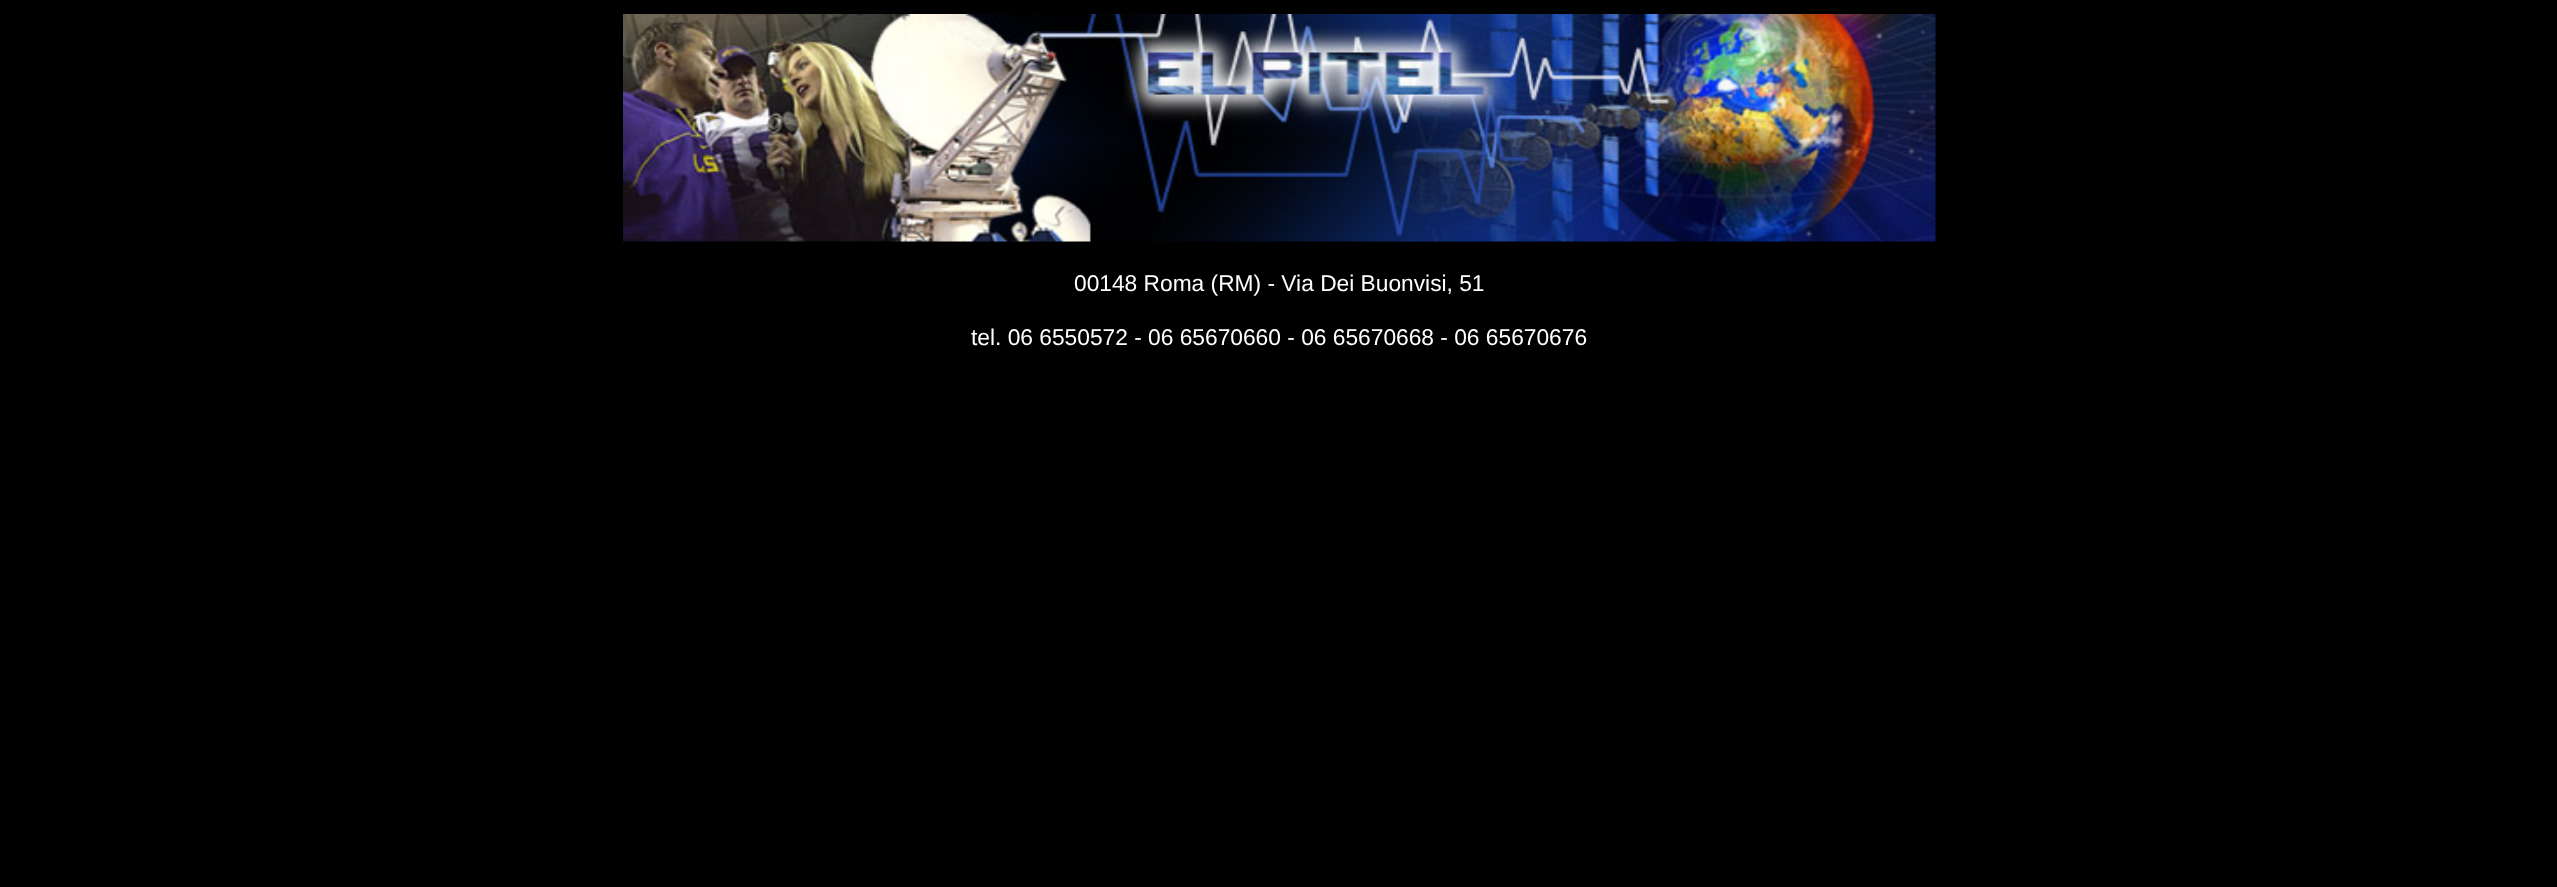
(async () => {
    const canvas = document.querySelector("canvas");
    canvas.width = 2557;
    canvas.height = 887;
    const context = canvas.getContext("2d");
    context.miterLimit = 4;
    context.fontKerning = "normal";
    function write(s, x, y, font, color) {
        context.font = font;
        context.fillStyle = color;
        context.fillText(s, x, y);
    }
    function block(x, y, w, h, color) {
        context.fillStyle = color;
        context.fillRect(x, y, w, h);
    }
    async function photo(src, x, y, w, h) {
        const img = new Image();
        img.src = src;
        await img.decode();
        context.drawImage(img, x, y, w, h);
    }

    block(0, 0, 2557, 887, "rgb(0, 0, 0)");
    await photo("media/1.png", 623, 14, 1313, 228);
    write("00148 Roma (RM) - Via Dei Buonvisi, 51", 1074, 291, "22.75px Liberation Sans", "rgb(255, 255, 255)");
    write("tel. 06 6550572 - 06 65670660 - 06 65670668 - 06 65670676", 971, 345, "22.75px Liberation Sans", "rgb(255, 255, 255)");
})();
